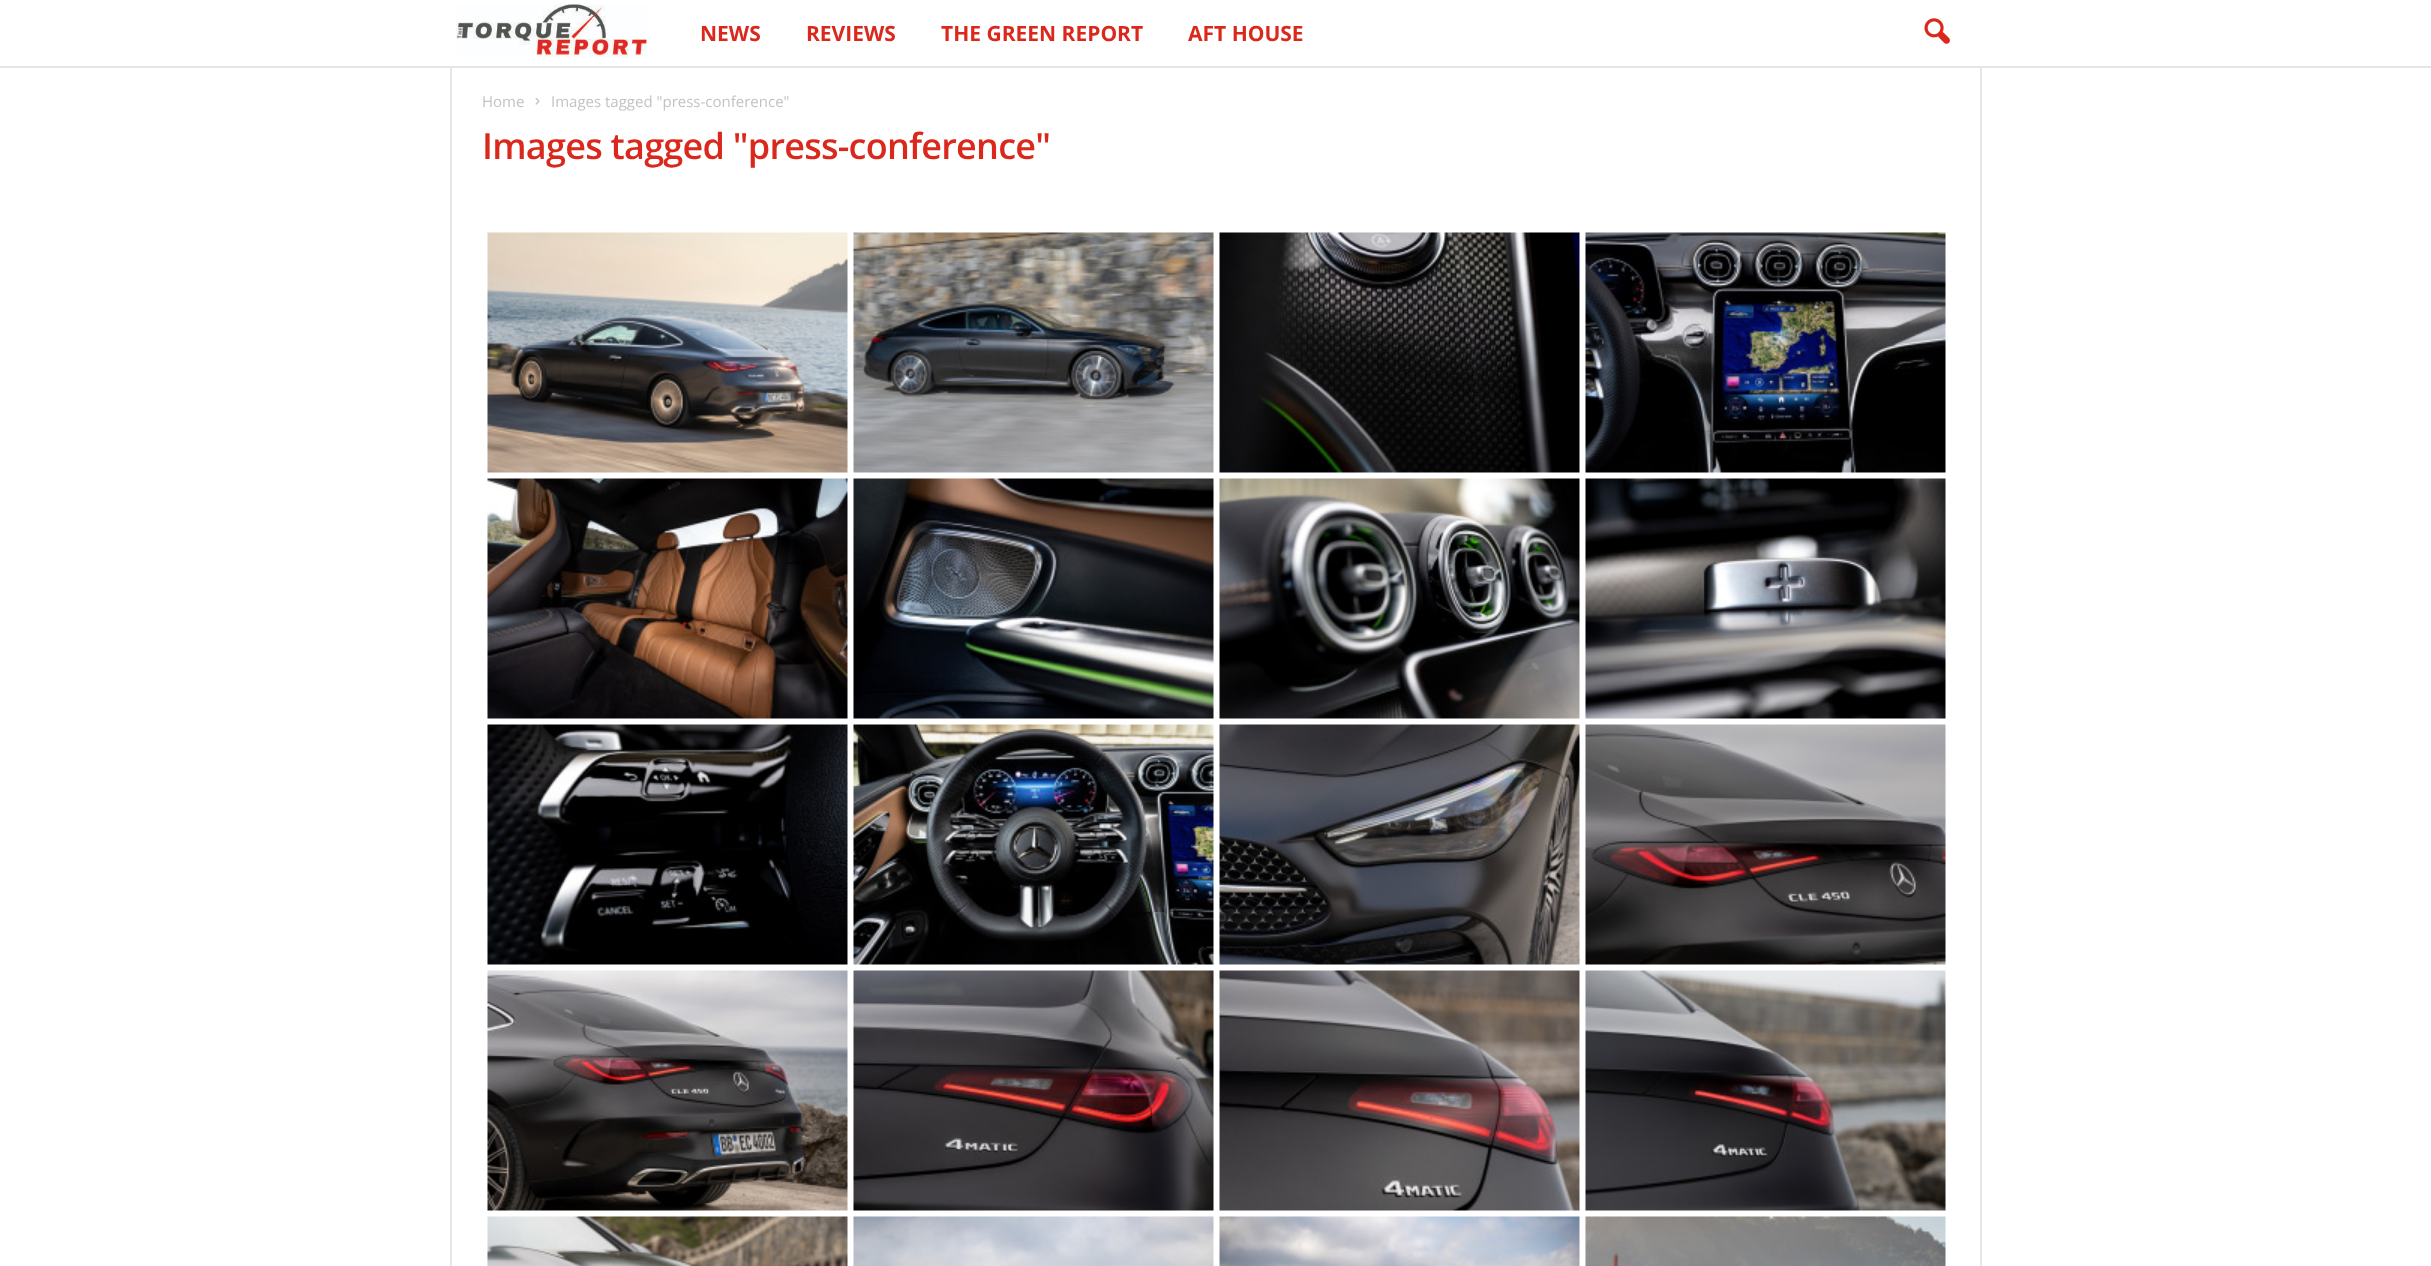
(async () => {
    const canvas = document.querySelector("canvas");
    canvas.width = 2431;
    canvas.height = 1266;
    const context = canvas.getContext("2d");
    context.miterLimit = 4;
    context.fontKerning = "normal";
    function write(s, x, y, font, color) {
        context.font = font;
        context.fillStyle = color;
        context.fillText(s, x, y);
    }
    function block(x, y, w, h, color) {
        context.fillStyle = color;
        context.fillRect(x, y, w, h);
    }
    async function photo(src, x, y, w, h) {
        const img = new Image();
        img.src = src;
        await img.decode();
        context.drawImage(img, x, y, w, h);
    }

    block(0, 0, 2431, 1266, "rgb(255, 255, 255)");
    block(0, 66, 2431, 2, "rgb(230, 230, 230)");
    await photo("media/1.png", 456, 4, 191, 53);
    write("NEWS", 700, 41, "bold 21px Open Sans", "rgb(218, 41, 28)");
    write("REVIEWS", 806, 41, "bold 21px Open Sans", "rgb(218, 41, 28)");
    write("THE GREEN REPORT", 941, 41, "bold 21px Open Sans", "rgb(218, 41, 28)");
    write("AFT HOUSE", 1188, 41, "bold 21px Open Sans", "rgb(218, 41, 28)");
    await photo("media/2.png", 1924, 18, 26, 26);
    block(450, 68, 2, 1198, "rgb(230, 230, 230)");
    write("Home", 482, 107, "15px Open Sans", "rgb(195, 195, 195)");
    await photo("media/3.png", 535, 97, 5, 8);
    write("Images tagged \"press-conference\"", 551, 107, "15px Open Sans", "rgb(195, 195, 195)");
    context.letterSpacing = "-0.75px";
    write("Images tagged \"press-conference\"", 482, 159, "600 36px Open Sans", "rgb(218, 41, 28)");
    await photo("media/4.png", 487, 232, 361, 241);
    await photo("media/5.png", 853, 232, 361, 241);
    await photo("media/6.png", 1219, 232, 361, 241);
    await photo("media/7.png", 1585, 232, 361, 241);
    await photo("media/8.png", 487, 478, 361, 241);
    await photo("media/9.png", 853, 478, 361, 241);
    await photo("media/10.png", 1219, 478, 361, 241);
    await photo("media/11.png", 1585, 478, 361, 241);
    await photo("media/12.png", 487, 724, 361, 241);
    await photo("media/13.png", 853, 724, 361, 241);
    await photo("media/14.png", 1219, 724, 361, 241);
    await photo("media/15.png", 1585, 724, 361, 241);
    await photo("media/16.png", 487, 970, 361, 241);
    await photo("media/17.png", 853, 970, 361, 241);
    await photo("media/18.png", 1219, 970, 361, 241);
    await photo("media/19.png", 1585, 970, 361, 241);
    await photo("media/20.png", 487, 1216, 361, 50);
    await photo("media/21.png", 853, 1216, 361, 50);
    await photo("media/22.png", 1219, 1216, 361, 50);
    await photo("media/23.png", 1585, 1216, 361, 50);
    block(1980, 68, 2, 1198, "rgb(230, 230, 230)");
})();
